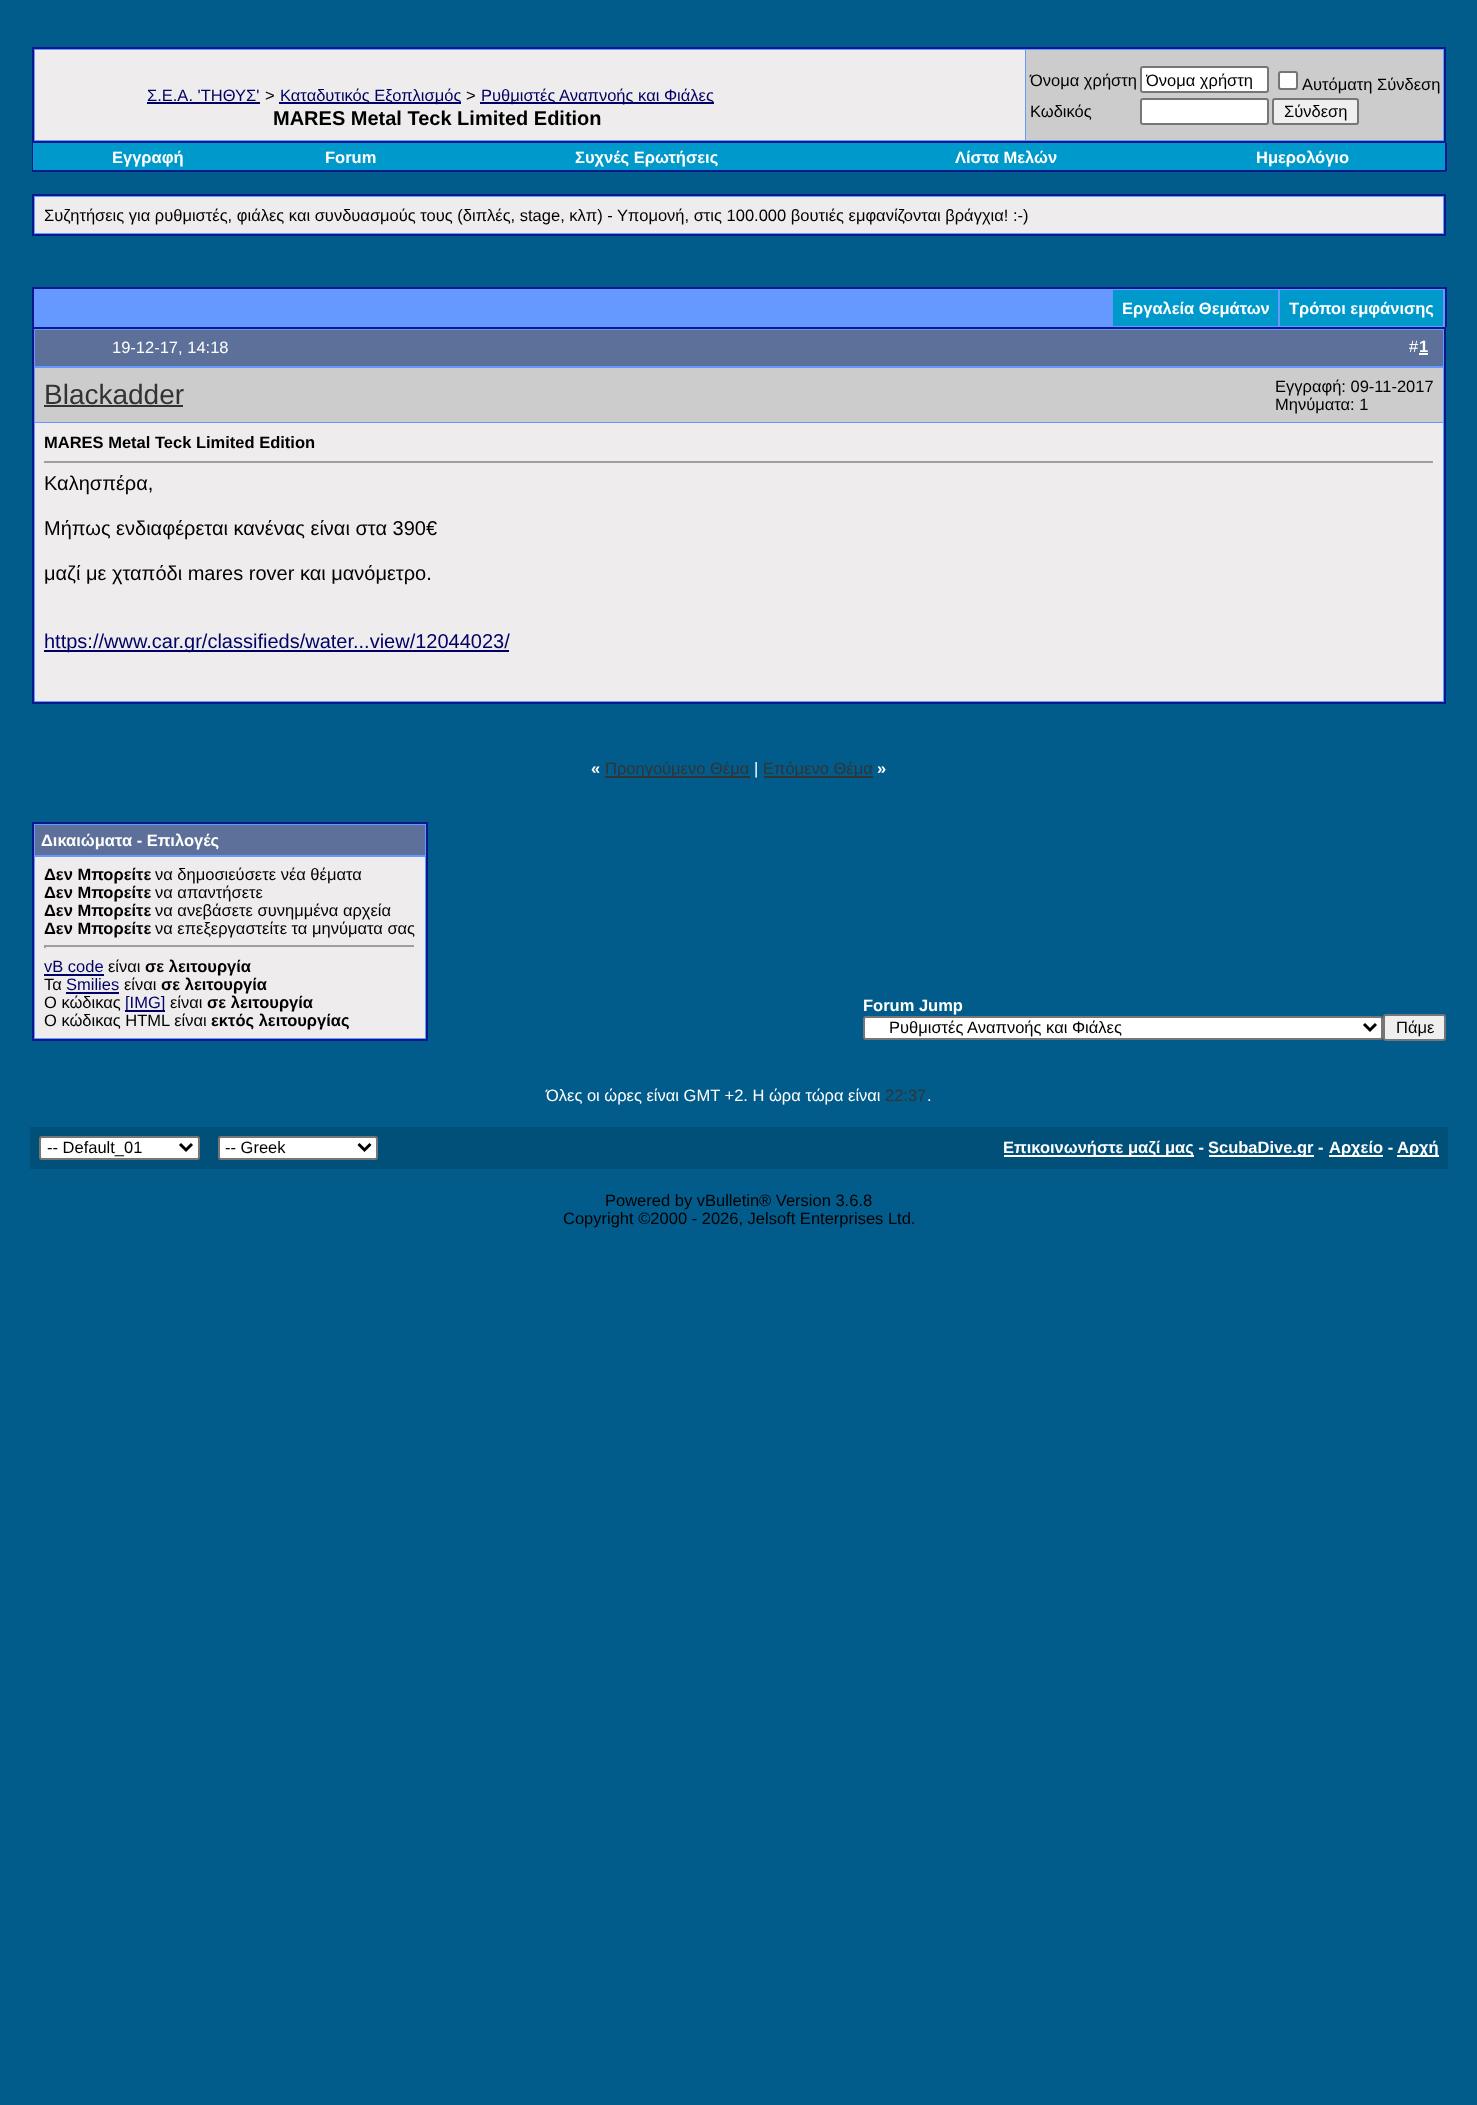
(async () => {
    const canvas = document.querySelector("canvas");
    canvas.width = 1477;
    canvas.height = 2105;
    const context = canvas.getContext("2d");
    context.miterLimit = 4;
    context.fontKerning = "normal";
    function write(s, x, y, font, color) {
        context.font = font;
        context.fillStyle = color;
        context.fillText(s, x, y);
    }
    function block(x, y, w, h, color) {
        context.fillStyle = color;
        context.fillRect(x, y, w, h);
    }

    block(0, 0, 1477, 2105, "rgb(2, 92, 139)");
    context.fillStyle = "rgb(102, 153, 255)";
    context.beginPath();
    context.rect(33, 48, 1412, 94);
    context.fill();
    context.strokeStyle = "rgb(11, 25, 140)";
    context.lineWidth = 2;
    context.stroke();
    block(35, 50, 990, 90, "rgb(238, 236, 236)");
    write("Σ.E.A. 'ΤΗΘΥΣ'", 147, 101, "16.5px Liberation Sans", "rgb(0, 0, 102)");
    block(147, 102, 113, 2, "rgb(0, 0, 102)");
    write(">", 265, 101, "16.5px Liberation Sans", "rgb(0, 0, 0)");
    block(279, 102, 182, 2, "rgb(0, 0, 102)");
    write("Καταδυτικός Εξοπλισμός", 280, 101, "16.5px Liberation Sans", "rgb(0, 0, 102)");
    write(">", 466, 101, "16.5px Liberation Sans", "rgb(0, 0, 0)");
    block(480, 102, 234, 2, "rgb(0, 0, 102)");
    write("Ρυθμιστές Αναπνοής και Φιάλες", 481, 101, "16.5px Liberation Sans", "rgb(0, 0, 102)");
    write("MARES Metal Teck Limited Edition", 273, 125, "bold 20px Liberation Sans", "rgb(0, 0, 0)");
    block(1026, 50, 417, 90, "rgb(204, 204, 204)");
    write("Όνομα χρήστη", 1030, 86, "16.5px Liberation Sans", "rgb(0, 0, 0)");
    context.fillStyle = "rgb(255, 255, 255)";
    context.beginPath();
    context.roundRect(1141, 67, 127, 25, 2);
    context.fill();
    context.strokeStyle = "rgb(118, 118, 118)";
    context.stroke();
    context.save();
    context.beginPath();
    context.rect(1146, 71, 117, 18);
    context.clip();
    write("Όνομα χρήστη", 1146, 86, "16.5px Liberation Sans", "rgb(0, 0, 0)");
    context.restore();
    context.beginPath();
    context.roundRect(1279, 72, 18, 17, 2);
    context.fill();
    context.stroke();
    write("Αυτόματη Σύνδεση", 1302, 90, "16.5px Liberation Sans", "rgb(0, 0, 0)");
    write("Κωδικός", 1030, 117, "16.5px Liberation Sans", "rgb(0, 0, 0)");
    context.fillStyle = "rgb(255, 255, 255)";
    context.beginPath();
    context.roundRect(1141, 99, 127, 25, 2);
    context.fill();
    context.stroke();
    context.fillStyle = "rgb(239, 239, 239)";
    context.beginPath();
    context.roundRect(1273, 99, 85, 25, 2);
    context.fill();
    context.stroke();
    write("Σύνδεση", 1284, 117, "16.5px Liberation Sans", "rgb(0, 0, 0)");
    block(1445, 143, 2, 28, "rgb(11, 25, 140)");
    block(32, 170, 1414, 2, "rgb(11, 25, 140)");
    block(32, 143, 2, 28, "rgb(11, 25, 140)");
    block(33, 143, 1412, 27, "rgb(0, 153, 204)");
    write("Εγγραφή", 112, 163, "bold 16.5px Liberation Sans", "rgb(255, 255, 255)");
    write("Forum", 325, 163, "bold 16.5px Liberation Sans", "rgb(255, 255, 255)");
    write("Συχνές Ερωτήσεις", 575, 163, "bold 16.5px Liberation Sans", "rgb(255, 255, 255)");
    write("Λίστα Μελών", 955, 163, "bold 16.5px Liberation Sans", "rgb(255, 255, 255)");
    write("Ημερολόγιο", 1256, 163, "bold 16.5px Liberation Sans", "rgb(255, 255, 255)");
    context.fillStyle = "rgb(102, 153, 255)";
    context.beginPath();
    context.rect(33, 195, 1412, 40);
    context.fill();
    context.strokeStyle = "rgb(11, 25, 140)";
    context.stroke();
    block(35, 197, 1408, 36, "rgb(238, 236, 236)");
    write("Συζητήσεις για ρυθμιστές, φιάλες και συνδυασμούς τους (διπλές, stage, κλπ) - Υπομονή, στις 100.000 βουτιές εμφανίζονται βράγχια! :-)", 44, 221, "16.5px Liberation Sans", "rgb(0, 0, 0)");
    block(34, 289, 1411, 38, "rgb(102, 153, 255)");
    block(32, 287, 1414, 2, "rgb(11, 25, 140)");
    block(1445, 287, 2, 40, "rgb(11, 25, 140)");
    block(32, 287, 2, 40, "rgb(11, 25, 140)");
    block(1113, 290, 165, 36, "rgb(0, 153, 204)");
    write("Εργαλεία Θεμάτων", 1122, 314, "bold 16.5px Liberation Sans", "rgb(255, 255, 255)");
    block(1280, 290, 163, 36, "rgb(0, 153, 204)");
    write("Τρόποι εμφάνισης", 1289, 314, "bold 16.5px Liberation Sans", "rgb(255, 255, 255)");
    context.fillStyle = "rgb(102, 153, 255)";
    context.beginPath();
    context.rect(33, 328, 1412, 375);
    context.fill();
    context.stroke();
    block(35, 330, 1408, 36, "rgb(92, 112, 153)");
    write("19-12-17, 14:18", 112, 353, "16.5px Liberation Sans", "rgb(255, 255, 255)");
    write("#", 1409, 352, "16.5px Liberation Sans", "rgb(255, 255, 255)");
    write("1", 1419, 352, "bold 16.5px Liberation Sans", "rgb(255, 255, 255)");
    block(1419, 353, 9, 2, "rgb(255, 255, 255)");
    block(35, 368, 1408, 54, "rgb(204, 204, 204)");
    write("Blackadder", 44, 404, "28px Liberation Sans", "rgb(51, 51, 51)");
    block(44, 405, 139, 2, "rgb(51, 51, 51)");
    write("Εγγραφή: 09-11-2017", 1275, 392, "16.5px Liberation Sans", "rgb(0, 0, 0)");
    write("Μηνύματα: 1", 1275, 410, "16.5px Liberation Sans", "rgb(0, 0, 0)");
    block(35, 423, 1408, 278, "rgb(238, 236, 236)");
    write("MARES Metal Teck Limited Edition", 44, 448, "bold 16.5px Liberation Sans", "rgb(0, 0, 0)");
    block(44, 461, 1390, 2, "rgb(159, 159, 159)");
    block(1433, 461, 2, 2, "rgb(238, 238, 238)");
    write("Καλησπέρα,", 44, 490, "20px Liberation Sans", "rgb(0, 0, 0)");
    write("Μήπως ενδιαφέρεται κανένας είναι στα 390€", 44, 535, "20px Liberation Sans", "rgb(0, 0, 0)");
    write("μαζί με χταπόδι mares rover και μανόμετρο.", 44, 580, "20px Liberation Sans", "rgb(0, 0, 0)");
    block(44, 650, 465, 2, "rgb(0, 0, 102)");
    write("https://www.car.gr/classifieds/water...view/12044023/", 44, 648, "20px Liberation Sans", "rgb(0, 0, 102)");
    write("«", 591, 774, "bold 16.5px Liberation Sans", "rgb(255, 255, 255)");
    block(605, 776, 145, 2, "rgb(51, 51, 51)");
    write("Προηγούμενο Θέμα", 605, 774, "16.5px Liberation Sans", "rgb(51, 51, 51)");
    write("|", 754, 774, "16.5px Liberation Sans", "rgb(255, 255, 255)");
    block(764, 776, 109, 2, "rgb(51, 51, 51)");
    write("Επόμενο Θέμα", 763, 774, "16.5px Liberation Sans", "rgb(51, 51, 51)");
    write("»", 877, 774, "bold 16.5px Liberation Sans", "rgb(255, 255, 255)");
    context.fillStyle = "rgb(102, 153, 255)";
    context.beginPath();
    context.rect(33, 823, 394, 217);
    context.fill();
    context.stroke();
    block(35, 825, 390, 30, "rgb(92, 112, 153)");
    write("Δικαιώματα - Επιλογές", 41, 846, "bold 16.5px Liberation Sans", "rgb(255, 255, 255)");
    block(35, 857, 390, 181, "rgb(238, 236, 236)");
    write("Δεν Μπορείτε", 44, 880, "bold 16.5px Liberation Sans", "rgb(0, 0, 0)");
    write("να δημοσιεύσετε νέα θέματα", 155, 880, "16.5px Liberation Sans", "rgb(0, 0, 0)");
    write("Δεν Μπορείτε", 44, 898, "bold 16.5px Liberation Sans", "rgb(0, 0, 0)");
    write("να απαντήσετε", 155, 898, "16.5px Liberation Sans", "rgb(0, 0, 0)");
    write("Δεν Μπορείτε", 44, 916, "bold 16.5px Liberation Sans", "rgb(0, 0, 0)");
    write("να ανεβάσετε συνημμένα αρχεία", 155, 916, "16.5px Liberation Sans", "rgb(0, 0, 0)");
    write("Δεν Μπορείτε", 44, 934, "bold 16.5px Liberation Sans", "rgb(0, 0, 0)");
    write("να επεξεργαστείτε τα μηνύματα σας", 155, 934, "16.5px Liberation Sans", "rgb(0, 0, 0)");
    block(44, 945, 372, 2, "rgb(159, 159, 159)");
    block(414, 945, 2, 3, "rgb(238, 238, 238)");
    block(44, 945, 2, 3, "rgb(159, 159, 159)");
    write("vB code", 44, 972, "16.5px Liberation Sans", "rgb(0, 0, 102)");
    block(44, 974, 60, 2, "rgb(0, 0, 102)");
    write("είναι", 108, 972, "16.5px Liberation Sans", "rgb(0, 0, 0)");
    write("σε λειτουργία", 145, 972, "bold 16.5px Liberation Sans", "rgb(0, 0, 0)");
    write("Τα", 44, 990, "16.5px Liberation Sans", "rgb(0, 0, 0)");
    write("Smilies", 66, 990, "16.5px Liberation Sans", "rgb(0, 0, 102)");
    block(66, 992, 53, 2, "rgb(0, 0, 102)");
    write("είναι", 124, 990, "16.5px Liberation Sans", "rgb(0, 0, 0)");
    write("σε λειτουργία", 161, 990, "bold 16.5px Liberation Sans", "rgb(0, 0, 0)");
    write("Ο κώδικας", 44, 1008, "16.5px Liberation Sans", "rgb(0, 0, 0)");
    block(125, 1010, 40, 2, "rgb(0, 0, 102)");
    write("[IMG]", 125, 1008, "16.5px Liberation Sans", "rgb(0, 0, 102)");
    write("είναι", 170, 1008, "16.5px Liberation Sans", "rgb(0, 0, 0)");
    write("σε λειτουργία", 207, 1008, "bold 16.5px Liberation Sans", "rgb(0, 0, 0)");
    write("Ο κώδικας HTML είναι", 44, 1026, "16.5px Liberation Sans", "rgb(0, 0, 0)");
    write("εκτός λειτουργίας", 211, 1026, "bold 16.5px Liberation Sans", "rgb(0, 0, 0)");
    write("Forum Jump", 863, 1011, "bold 16.5px Liberation Sans", "rgb(255, 255, 255)");
    context.beginPath();
    context.roundRect(864, 1017, 518, 22, 2);
    context.fill();
    context.strokeStyle = "rgb(118, 118, 118)";
    context.stroke();
    context.beginPath();
    context.moveTo(1364, 1024);
    context.lineTo(1370, 1030);
    context.lineTo(1376, 1024);
    context.strokeStyle = "rgb(0, 0, 0)";
    context.lineWidth = 3;
    context.stroke();
    write("Ρυθμιστές Αναπνοής και Φιάλες", 889, 1033, "16.5px Liberation Sans", "rgb(0, 0, 0)");
    context.fillStyle = "rgb(239, 239, 239)";
    context.beginPath();
    context.roundRect(1384, 1015, 61, 25, 2);
    context.fill();
    context.strokeStyle = "rgb(118, 118, 118)";
    context.lineWidth = 2;
    context.stroke();
    write("Πάμε", 1396, 1033, "16.5px Liberation Sans", "rgb(0, 0, 0)");
    write("Όλες οι ώρες είναι GMT +2. Η ώρα τώρα είναι", 546, 1101, "16.5px Liberation Sans", "rgb(255, 255, 255)");
    write("22:37", 885, 1101, "16.5px Liberation Sans", "rgb(51, 51, 51)");
    write(".", 927, 1101, "16.5px Liberation Sans", "rgb(255, 255, 255)");
    block(30, 1127, 1418, 42, "rgb(0, 80, 121)");
    context.fillStyle = "rgb(255, 255, 255)";
    context.beginPath();
    context.roundRect(40, 1137, 159, 22, 2);
    context.fill();
    context.stroke();
    context.beginPath();
    context.moveTo(180, 1144);
    context.lineTo(186, 1150);
    context.lineTo(192, 1144);
    context.strokeStyle = "rgb(0, 0, 0)";
    context.lineWidth = 3;
    context.stroke();
    write("-- Default_01", 47, 1153, "16.5px Liberation Sans", "rgb(0, 0, 0)");
    context.fillStyle = "rgb(255, 255, 255)";
    context.beginPath();
    context.roundRect(219, 1137, 158, 22, 2);
    context.fill();
    context.strokeStyle = "rgb(118, 118, 118)";
    context.lineWidth = 2;
    context.stroke();
    context.beginPath();
    context.moveTo(358.5, 1144);
    context.lineTo(364.5, 1150);
    context.lineTo(370.5, 1144);
    context.strokeStyle = "rgb(0, 0, 0)";
    context.lineWidth = 3;
    context.stroke();
    write("-- Greek", 225, 1153, "16.5px Liberation Sans", "rgb(0, 0, 0)");
    block(1004, 1155, 190, 2, "rgb(255, 255, 255)");
    write("Επικοινωνήστε μαζί μας -", 1003, 1153, "bold 16.5px Liberation Sans", "rgb(255, 255, 255)");
    block(1209, 1155, 105, 2, "rgb(255, 255, 255)");
    write("ScubaDive.gr -", 1208, 1153, "bold 16.5px Liberation Sans", "rgb(255, 255, 255)");
    block(1329, 1155, 54, 2, "rgb(255, 255, 255)");
    write("Αρχείο -", 1329, 1153, "bold 16.5px Liberation Sans", "rgb(255, 255, 255)");
    block(1397, 1155, 42, 2, "rgb(255, 255, 255)");
    write("Αρχή", 1397, 1153, "bold 16.5px Liberation Sans", "rgb(255, 255, 255)");
    write("Powered by vBulletin® Version 3.6.8", 605, 1206, "16.5px Liberation Sans", "rgb(0, 0, 0)");
    write("Copyright ©2000 - 2026, Jelsoft Enterprises Ltd.", 563, 1224, "16.5px Liberation Sans", "rgb(0, 0, 0)");
})();
